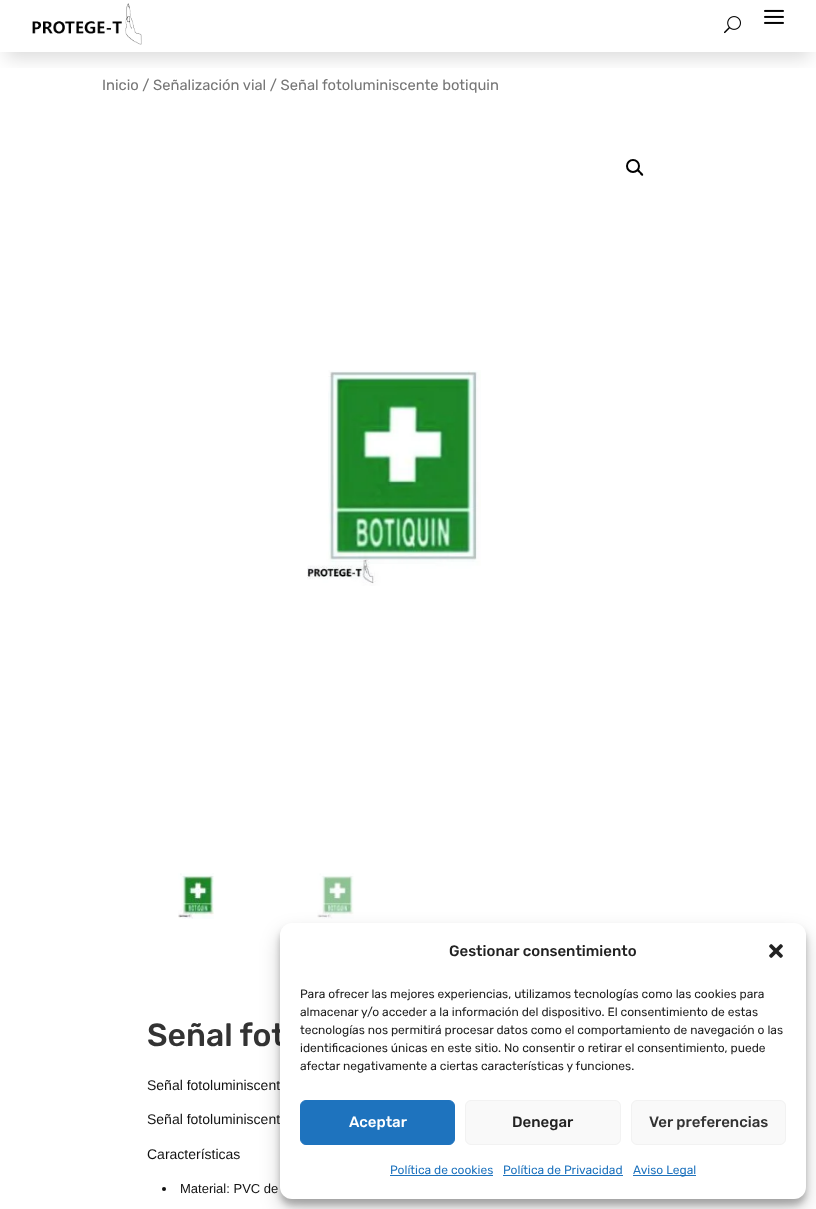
(async () => {
    const canvas = document.querySelector("canvas");
    canvas.width = 816;
    canvas.height = 1209;
    const context = canvas.getContext("2d");
    context.miterLimit = 4;
    context.fontKerning = "normal";
    function write(s, x, y, font, color) {
        context.font = font;
        context.fillStyle = color;
        context.fillText(s, x, y);
    }
    function block(x, y, w, h, color) {
        context.fillStyle = color;
        context.fillRect(x, y, w, h);
    }
    function card(x, y, w, h, r, color) {
        context.fillStyle = color;
        context.beginPath();
        context.roundRect(x, y, w, h, r);
        context.fill();
    }
    async function photo(src, x, y, w, h) {
        const img = new Image();
        img.src = src;
        await img.decode();
        context.drawImage(img, x, y, w, h);
    }

    block(0, 0, 816, 1209, "rgb(255, 255, 255)");
    context.save();
    context.beginPath();
    context.rect(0, 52, 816, 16);
    context.clip();
    context.fillStyle = "rgba(0, 0, 0, 0.14)";
    context.filter = "blur(9px)";
    context.beginPath();
    context.rect(6, 18, 804, 40);
    context.fill();
    context.filter = "none";
    context.restore();
    await photo("media/1.png", 32, 3, 110, 42);
    await photo("media/2.png", 724, 16, 17, 18);
    await photo("media/3.png", 764, 9, 20, 15);
    write("Inicio / Señalización vial / Señal fotoluminiscente botiquin", 102, 90, "300 14.75px Rubik", "rgb(118, 118, 118)");
    context.beginPath();
    context.arc(633, 166, 6, 0, Math.PI * 2);
    context.strokeStyle = "rgb(0, 0, 0)";
    context.lineWidth = 2;
    context.stroke();
    context.fillStyle = "rgb(0, 0, 0)";
    context.beginPath();
    context.moveTo(637.5, 169.5);
    context.bezierCurveTo(638.5, 168.5, 640, 171, 641, 172);
    context.bezierCurveTo(641.5, 172.5, 644, 174, 643, 175.5);
    context.bezierCurveTo(641.5, 176.5, 640, 174, 639.5, 173);
    context.bezierCurveTo(639, 172.5, 636, 171, 637.5, 169.5);
    context.closePath();
    context.fill();
    await photo("media/4.png", 307, 370, 174, 216);
    await photo("media/5.png", 178, 873, 36, 46);
    await photo("media/6.png", 317, 873, 37, 46);
    write("Señal fot", 147, 1046, "300 32px 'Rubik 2'", "rgb(51, 51, 51)");
    write("Señal fotoluminiscent", 147, 1090, "14px Liberation Sans", "rgb(17, 17, 17)");
    write("Señal fotoluminiscent", 147, 1124, "14px Liberation Sans", "rgb(17, 17, 17)");
    write("Características", 147, 1159, "14px Liberation Sans", "rgb(17, 17, 17)");
    context.beginPath();
    context.arc(164, 1189, 2, 0, Math.PI * 2);
    context.fill();
    write("Material: PVC de", 180, 1193, "13px Liberation Sans", "rgb(17, 17, 17)");
    context.fillStyle = "rgba(0, 0, 0, 0.23)";
    context.filter = "blur(3px)";
    context.beginPath();
    context.roundRect(280, 929, 526, 276, 12);
    context.fill();
    context.filter = "none";
    context.fillStyle = "rgba(0, 0, 0, 0.19)";
    context.filter = "blur(10px)";
    context.beginPath();
    context.roundRect(280, 933, 526, 276, 12);
    context.fill();
    context.filter = "none";
    card(280, 923, 526, 276, 12, "rgb(255, 255, 255)");
    write("Gestionar consentimiento", 449, 956, "300 15px 'Rubik 2'", "rgb(34, 34, 34)");
    await photo("media/7.png", 769, 944, 14, 14);
    write("Para ofrecer las mejores experiencias, utilizamos tecnologías como las cookies para", 300, 998, "300 12px Rubik", "rgb(34, 34, 34)");
    write("almacenar y/o acceder a la información del dispositivo. El consentimiento de estas", 300, 1016, "300 12px Rubik", "rgb(34, 34, 34)");
    write("tecnologías nos permitirá procesar datos como el comportamiento de navegación o las", 300, 1034, "300 12px Rubik", "rgb(34, 34, 34)");
    write("identificaciones únicas en este sitio. No consentir o retirar el consentimiento, puede", 300, 1052, "300 12px Rubik", "rgb(34, 34, 34)");
    write("afectar negativamente a ciertas características y funciones.", 300, 1070, "300 12px Rubik", "rgb(34, 34, 34)");
    context.fillStyle = "rgb(30, 115, 190)";
    context.beginPath();
    context.roundRect(300.5, 1100.5, 154, 44, 5.5);
    context.fill();
    context.strokeStyle = "rgb(30, 115, 190)";
    context.lineWidth = 1;
    context.stroke();
    write("Aceptar", 349, 1127, "300 15px 'Rubik 2'", "rgb(255, 255, 255)");
    context.fillStyle = "rgb(249, 249, 249)";
    context.beginPath();
    context.roundRect(465.5, 1100.5, 155, 44, 5.5);
    context.fill();
    context.strokeStyle = "rgb(242, 242, 242)";
    context.stroke();
    write("Denegar", 512, 1127, "300 15px 'Rubik 2'", "rgb(34, 34, 34)");
    context.fillStyle = "rgb(249, 249, 249)";
    context.beginPath();
    context.roundRect(631.5, 1100.5, 154, 44, 5.5);
    context.fill();
    context.stroke();
    write("Ver preferencias", 649, 1127, "300 15px 'Rubik 2'", "rgb(51, 51, 51)");
    write("Política de cookies", 390, 1174, "300 12px Rubik", "rgb(30, 115, 190)");
    block(390, 1175, 103, 1, "rgb(30, 115, 190)");
    write("Política de Privacidad", 503, 1174, "300 12px Rubik", "rgb(30, 115, 190)");
    block(503, 1175, 120, 1, "rgb(30, 115, 190)");
    block(633, 1175, 63, 1, "rgb(30, 115, 190)");
    write("Aviso Legal", 633, 1174, "300 12px Rubik", "rgb(30, 115, 190)");
})();
